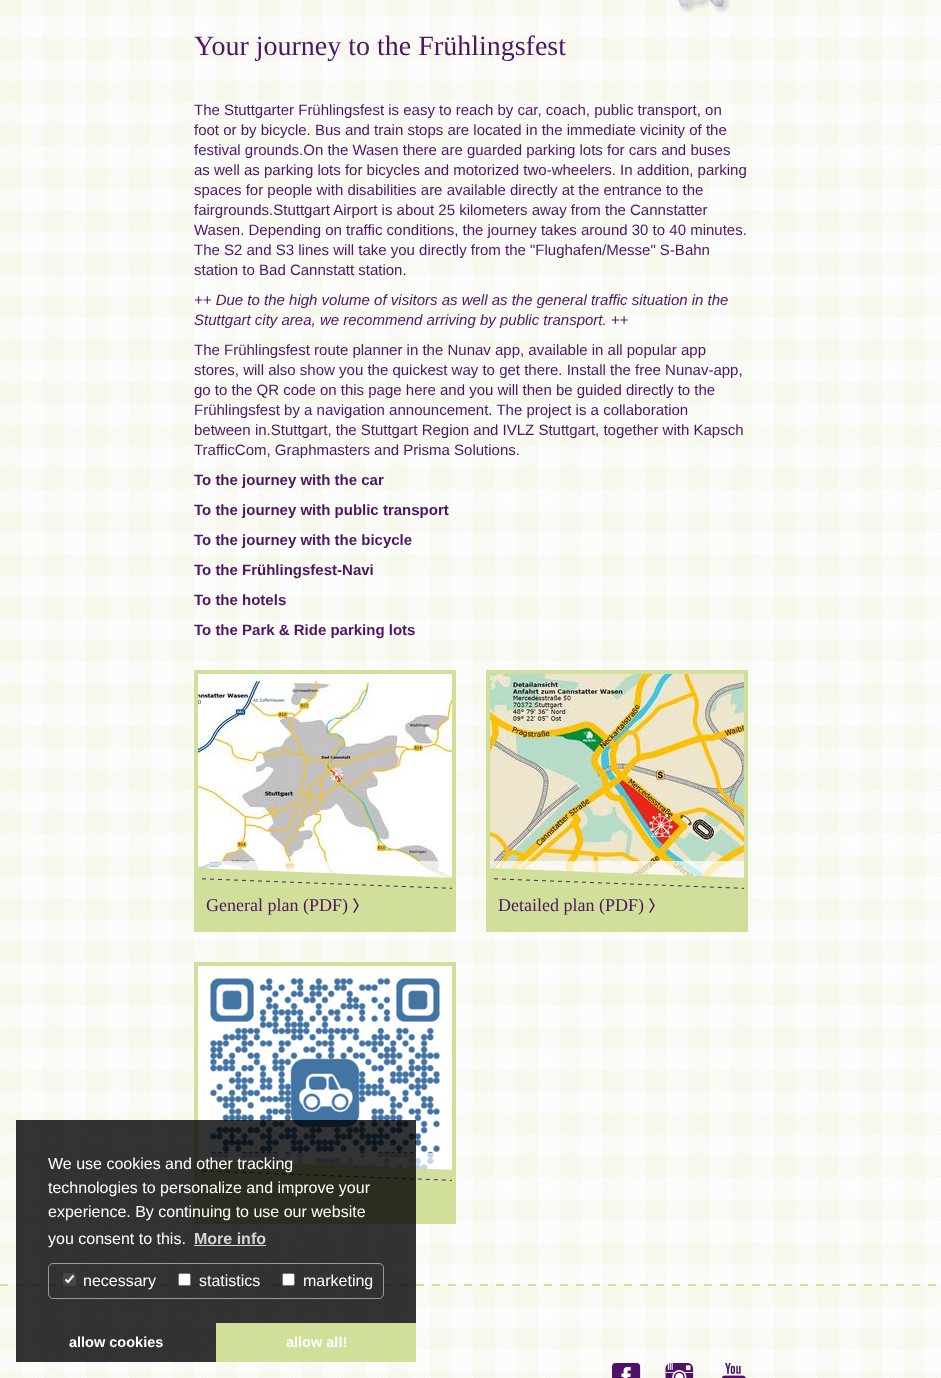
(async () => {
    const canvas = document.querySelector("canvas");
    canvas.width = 941;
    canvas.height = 1378;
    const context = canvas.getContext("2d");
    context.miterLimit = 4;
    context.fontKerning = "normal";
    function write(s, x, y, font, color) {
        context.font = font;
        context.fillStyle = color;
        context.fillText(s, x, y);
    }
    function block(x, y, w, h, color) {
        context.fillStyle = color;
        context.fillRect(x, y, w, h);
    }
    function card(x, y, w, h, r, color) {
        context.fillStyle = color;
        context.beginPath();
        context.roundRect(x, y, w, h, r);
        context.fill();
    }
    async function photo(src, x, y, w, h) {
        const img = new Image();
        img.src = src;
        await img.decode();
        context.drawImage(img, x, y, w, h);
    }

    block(0, 0, 941, 1378, "rgb(255, 255, 255)");
    await photo("media/1.png", 0, 0, 941, 1378);
    await photo("media/2.png", 678, 0, 52, 13);
    write("Your journey to the Frühlingsfest", 194, 55, "28px Liberation Serif", "rgb(78, 21, 100)");
    write("The Stuttgarter Frühlingsfest is easy to reach by car, coach, public transport, on", 194, 115, "15px Liberation Sans", "rgb(78, 21, 100)");
    write("foot or by bicycle. Bus and train stops are located in the immediate vicinity of the", 194, 135, "15px Liberation Sans", "rgb(78, 21, 100)");
    write("festival grounds.On the Wasen there are guarded parking lots for cars and buses", 194, 155, "15px Liberation Sans", "rgb(78, 21, 100)");
    write("as well as parking lots for bicycles and motorized two-wheelers. In addition, parking", 194, 175, "15px Liberation Sans", "rgb(78, 21, 100)");
    write("spaces for people with disabilities are available directly at the entrance to the", 194, 195, "15px Liberation Sans", "rgb(78, 21, 100)");
    write("fairgrounds.Stuttgart Airport is about 25 kilometers away from the Cannstatter", 194, 215, "15px Liberation Sans", "rgb(78, 21, 100)");
    write("Wasen. Depending on traffic conditions, the journey takes around 30 to 40 minutes.", 194, 235, "15px Liberation Sans", "rgb(78, 21, 100)");
    write("The S2 and S3 lines will take you directly from the \"Flughafen/Messe\" S-Bahn", 194, 255, "15px Liberation Sans", "rgb(78, 21, 100)");
    write("station to Bad Cannstatt station.", 194, 275, "15px Liberation Sans", "rgb(78, 21, 100)");
    write("++ Due to the high volume of visitors as well as the general traffic situation in the", 194, 305, "italic 15px Liberation Sans", "rgb(78, 21, 100)");
    write("Stuttgart city area, we recommend arriving by public transport. ++", 194, 325, "italic 15px Liberation Sans", "rgb(78, 21, 100)");
    write("The Frühlingsfest route planner in the Nunav app, available in all popular app", 194, 355, "15px Liberation Sans", "rgb(78, 21, 100)");
    write("stores, will also show you the quickest way to get there. Install the free Nunav-app,", 194, 375, "15px Liberation Sans", "rgb(78, 21, 100)");
    write("go to the QR code on this page here and you will then be guided directly to the", 194, 395, "15px Liberation Sans", "rgb(78, 21, 100)");
    write("Frühlingsfest by a navigation announcement. The project is a collaboration", 194, 415, "15px Liberation Sans", "rgb(78, 21, 100)");
    write("between in.Stuttgart, the Stuttgart Region and IVLZ Stuttgart, together with Kapsch", 194, 435, "15px Liberation Sans", "rgb(78, 21, 100)");
    write("TrafficCom, Graphmasters and Prisma Solutions.", 194, 455, "15px Liberation Sans", "rgb(78, 21, 100)");
    context.save();
    context.beginPath();
    context.rect(194, 90, 554, 560);
    context.clip();
    write("To the journey with the car", 194, 485, "bold 15px Liberation Sans", "rgb(78, 21, 100)");
    write("To the journey with public transport", 194, 515, "bold 15px Liberation Sans", "rgb(78, 21, 100)");
    write("To the journey with the bicycle", 194, 545, "bold 15px Liberation Sans", "rgb(78, 21, 100)");
    write("To the Frühlingsfest-Navi", 194, 575, "bold 15px Liberation Sans", "rgb(78, 21, 100)");
    write("To the hotels", 194, 605, "bold 15px Liberation Sans", "rgb(78, 21, 100)");
    write("To the Park & Ride parking lots", 194, 635, "bold 15px Liberation Sans", "rgb(78, 21, 100)");
    context.restore();
    block(194, 670, 262, 262, "rgb(208, 223, 153)");
    await photo("media/3.png", 198, 674, 254, 204);
    block(198, 861, 254, 17, "rgba(255, 255, 255, 0.7)");
    await photo("media/4.png", 198, 868, 254, 60);
    write("General plan (PDF)", 206, 911, "18px Liberation Serif", "rgb(78, 21, 100)");
    await photo("media/5.png", 353, 898, 6, 15);
    block(486, 670, 262, 262, "rgb(208, 223, 153)");
    await photo("media/6.png", 490, 674, 254, 204);
    block(490, 861, 254, 17, "rgba(255, 255, 255, 0.7)");
    await photo("media/7.png", 490, 868, 254, 60);
    write("Detailed plan (PDF)", 498, 911, "18px Liberation Serif", "rgb(78, 21, 100)");
    await photo("media/5.png", 649, 898, 6, 15);
    block(194, 962, 262, 262, "rgb(208, 223, 153)");
    await photo("media/8.png", 198, 966, 254, 204);
    block(209, 1153, 225, 17, "rgba(255, 255, 255, 0.7)");
    await photo("media/9.png", 198, 1160, 254, 60);
    await photo("media/10.png", 0, 1284, 936, 2);
    block(16, 1120, 400, 242, "rgba(0, 0, 0, 0.8)");
    write("We use cookies and other tracking", 48, 1169, "16px Liberation Sans", "rgb(255, 255, 255)");
    write("technologies to personalize and improve your", 48, 1193, "16px Liberation Sans", "rgb(255, 255, 255)");
    write("experience. By continuing to use our website", 48, 1217, "16px Liberation Sans", "rgb(255, 255, 255)");
    write("you consent to this.", 48, 1244, "16px Liberation Sans", "rgb(255, 255, 255)");
    write("More info", 194, 1244, "bold 16px Liberation Sans", "rgb(214, 214, 214)");
    block(194, 1245, 72, 1, "rgba(255, 255, 255, 0.8)");
    context.beginPath();
    context.roundRect(48.5, 1263.5, 335, 35, 4.5);
    context.strokeStyle = "rgba(255, 255, 255, 0.5)";
    context.stroke();
    card(63, 1273, 13, 13, 2, "rgba(118, 118, 118, 0.3)");
    context.beginPath();
    context.moveTo(65.5, 1279.5);
    context.lineTo(68, 1282);
    context.lineTo(73.5, 1275.5);
    context.strokeStyle = "rgb(255, 255, 255)";
    context.lineWidth = 2.1;
    context.stroke();
    write("necessary", 83, 1286, "16px Liberation Sans", "rgb(255, 255, 255)");
    context.beginPath();
    context.roundRect(178.5, 1273.5, 12, 12, 1.5);
    context.fill();
    context.strokeStyle = "rgb(118, 118, 118)";
    context.lineWidth = 1;
    context.stroke();
    write("statistics", 199, 1286, "16px Liberation Sans", "rgb(255, 255, 255)");
    context.beginPath();
    context.roundRect(282.5, 1273.5, 12, 12, 1.5);
    context.fill();
    context.stroke();
    write("marketing", 303, 1286, "16px Liberation Sans", "rgb(255, 255, 255)");
    write("allow cookies", 69, 1347, "bold 14.5px Liberation Sans", "rgb(255, 255, 255)");
    block(216, 1323, 200, 39, "rgb(208, 223, 153)");
    write("allow all!", 286, 1347, "bold 14.5px Liberation Sans", "rgb(255, 255, 255)");
    await photo("media/11.png", 612, 1363, 29, 15);
    await photo("media/12.png", 665, 1363, 29, 15);
    await photo("media/13.png", 721, 1363, 25, 15);
})();
